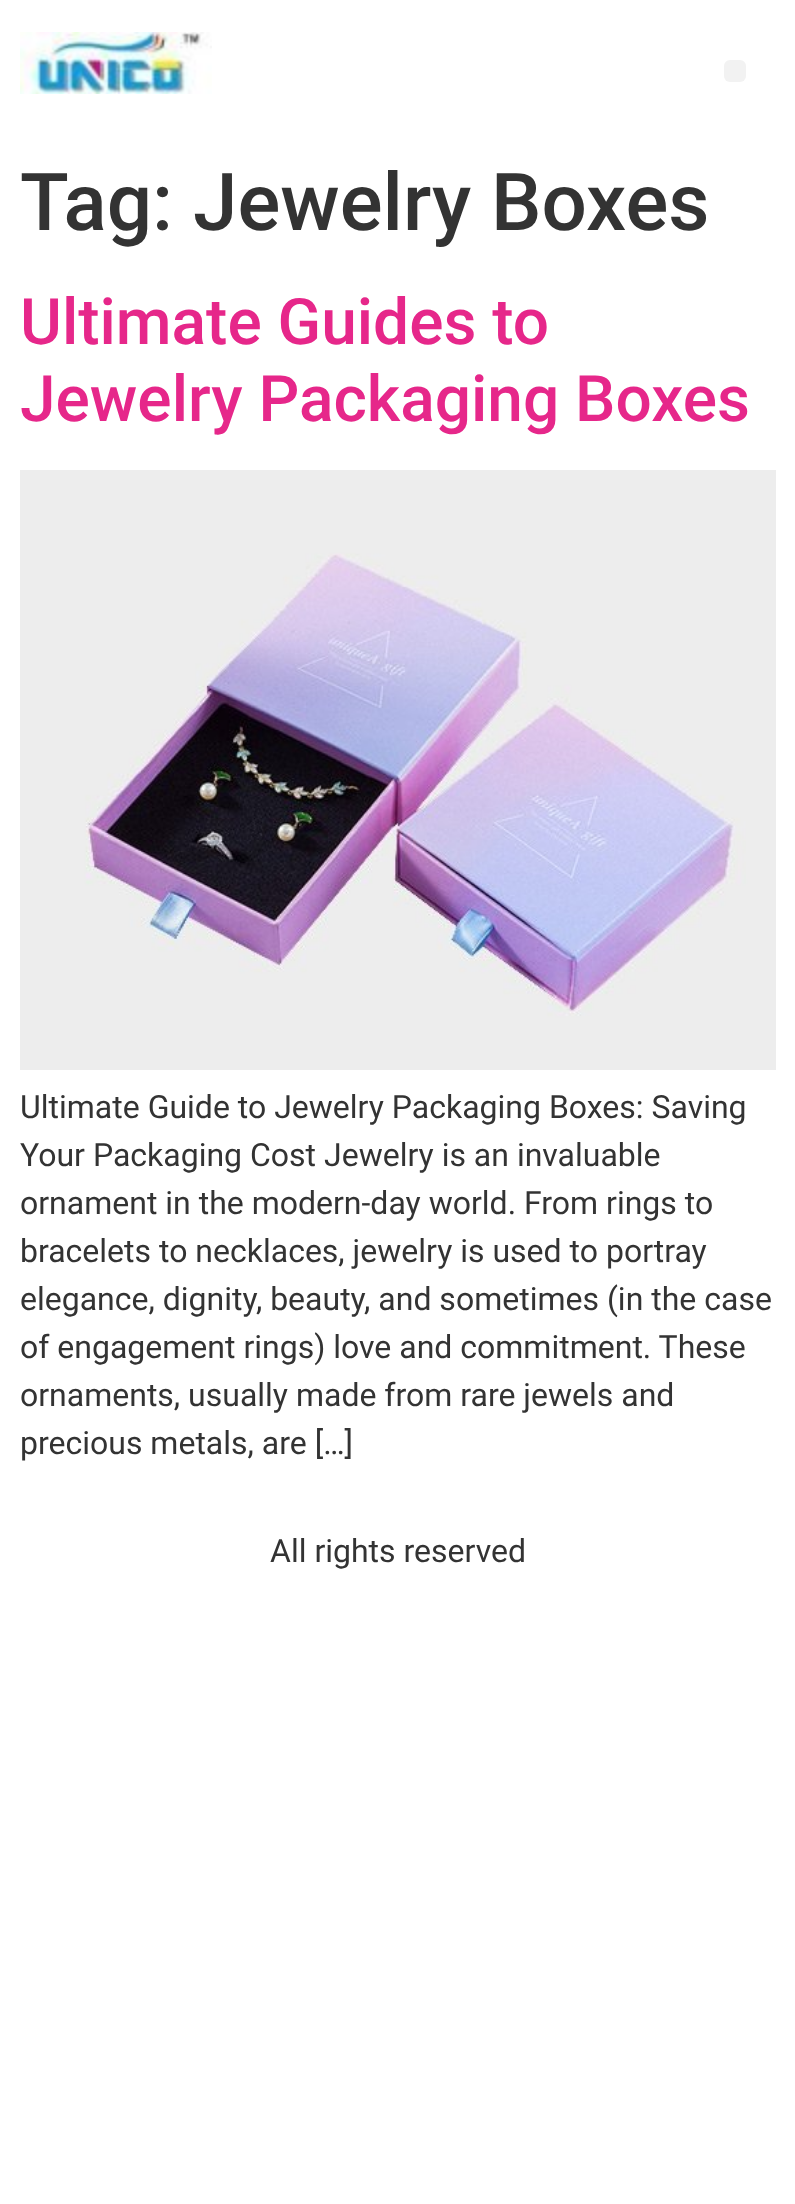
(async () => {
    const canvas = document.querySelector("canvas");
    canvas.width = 795;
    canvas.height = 2204;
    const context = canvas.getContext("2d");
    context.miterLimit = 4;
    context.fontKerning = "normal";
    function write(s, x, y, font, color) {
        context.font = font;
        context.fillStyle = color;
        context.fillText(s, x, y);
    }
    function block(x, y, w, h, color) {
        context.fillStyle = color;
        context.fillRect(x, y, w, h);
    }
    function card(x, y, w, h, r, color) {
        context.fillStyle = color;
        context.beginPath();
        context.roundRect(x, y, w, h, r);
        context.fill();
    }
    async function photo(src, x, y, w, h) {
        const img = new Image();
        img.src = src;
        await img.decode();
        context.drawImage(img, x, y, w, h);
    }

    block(0, 0, 795, 2204, "rgb(255, 255, 255)");
    await photo("media/1.png", 20, 32, 192, 62);
    card(724, 60, 22, 22, 6, "rgb(242, 242, 242)");
    write("Tag: Jewelry Boxes", 20, 230, "500 80px Roboto", "rgb(51, 51, 51)");
    write("Ultimate Guides to", 20, 344, "500 64px Roboto", "rgb(230, 39, 138)");
    write("Jewelry Packaging Boxes", 20, 421, "500 64px Roboto", "rgb(230, 39, 138)");
    await photo("media/2.png", 20, 470, 756, 600);
    write("Ultimate Guide to Jewelry Packaging Boxes: Saving", 20, 1118, "32px Roboto", "rgb(51, 51, 51)");
    write("Your Packaging Cost Jewelry is an invaluable", 20, 1166, "32px Roboto", "rgb(51, 51, 51)");
    write("ornament in the modern-day world. From rings to", 20, 1214, "32px Roboto", "rgb(51, 51, 51)");
    write("bracelets to necklaces, jewelry is used to portray", 20, 1262, "32px Roboto", "rgb(51, 51, 51)");
    write("elegance, dignity, beauty, and sometimes (in the case", 20, 1310, "32px Roboto", "rgb(51, 51, 51)");
    write("of engagement rings) love and commitment. These", 20, 1358, "32px Roboto", "rgb(51, 51, 51)");
    write("ornaments, usually made from rare jewels and", 20, 1406, "32px Roboto", "rgb(51, 51, 51)");
    write("precious metals, are […]", 20, 1454, "32px Roboto", "rgb(51, 51, 51)");
    write("All rights reserved", 270, 1562, "32px Roboto", "rgb(51, 51, 51)");
})();
